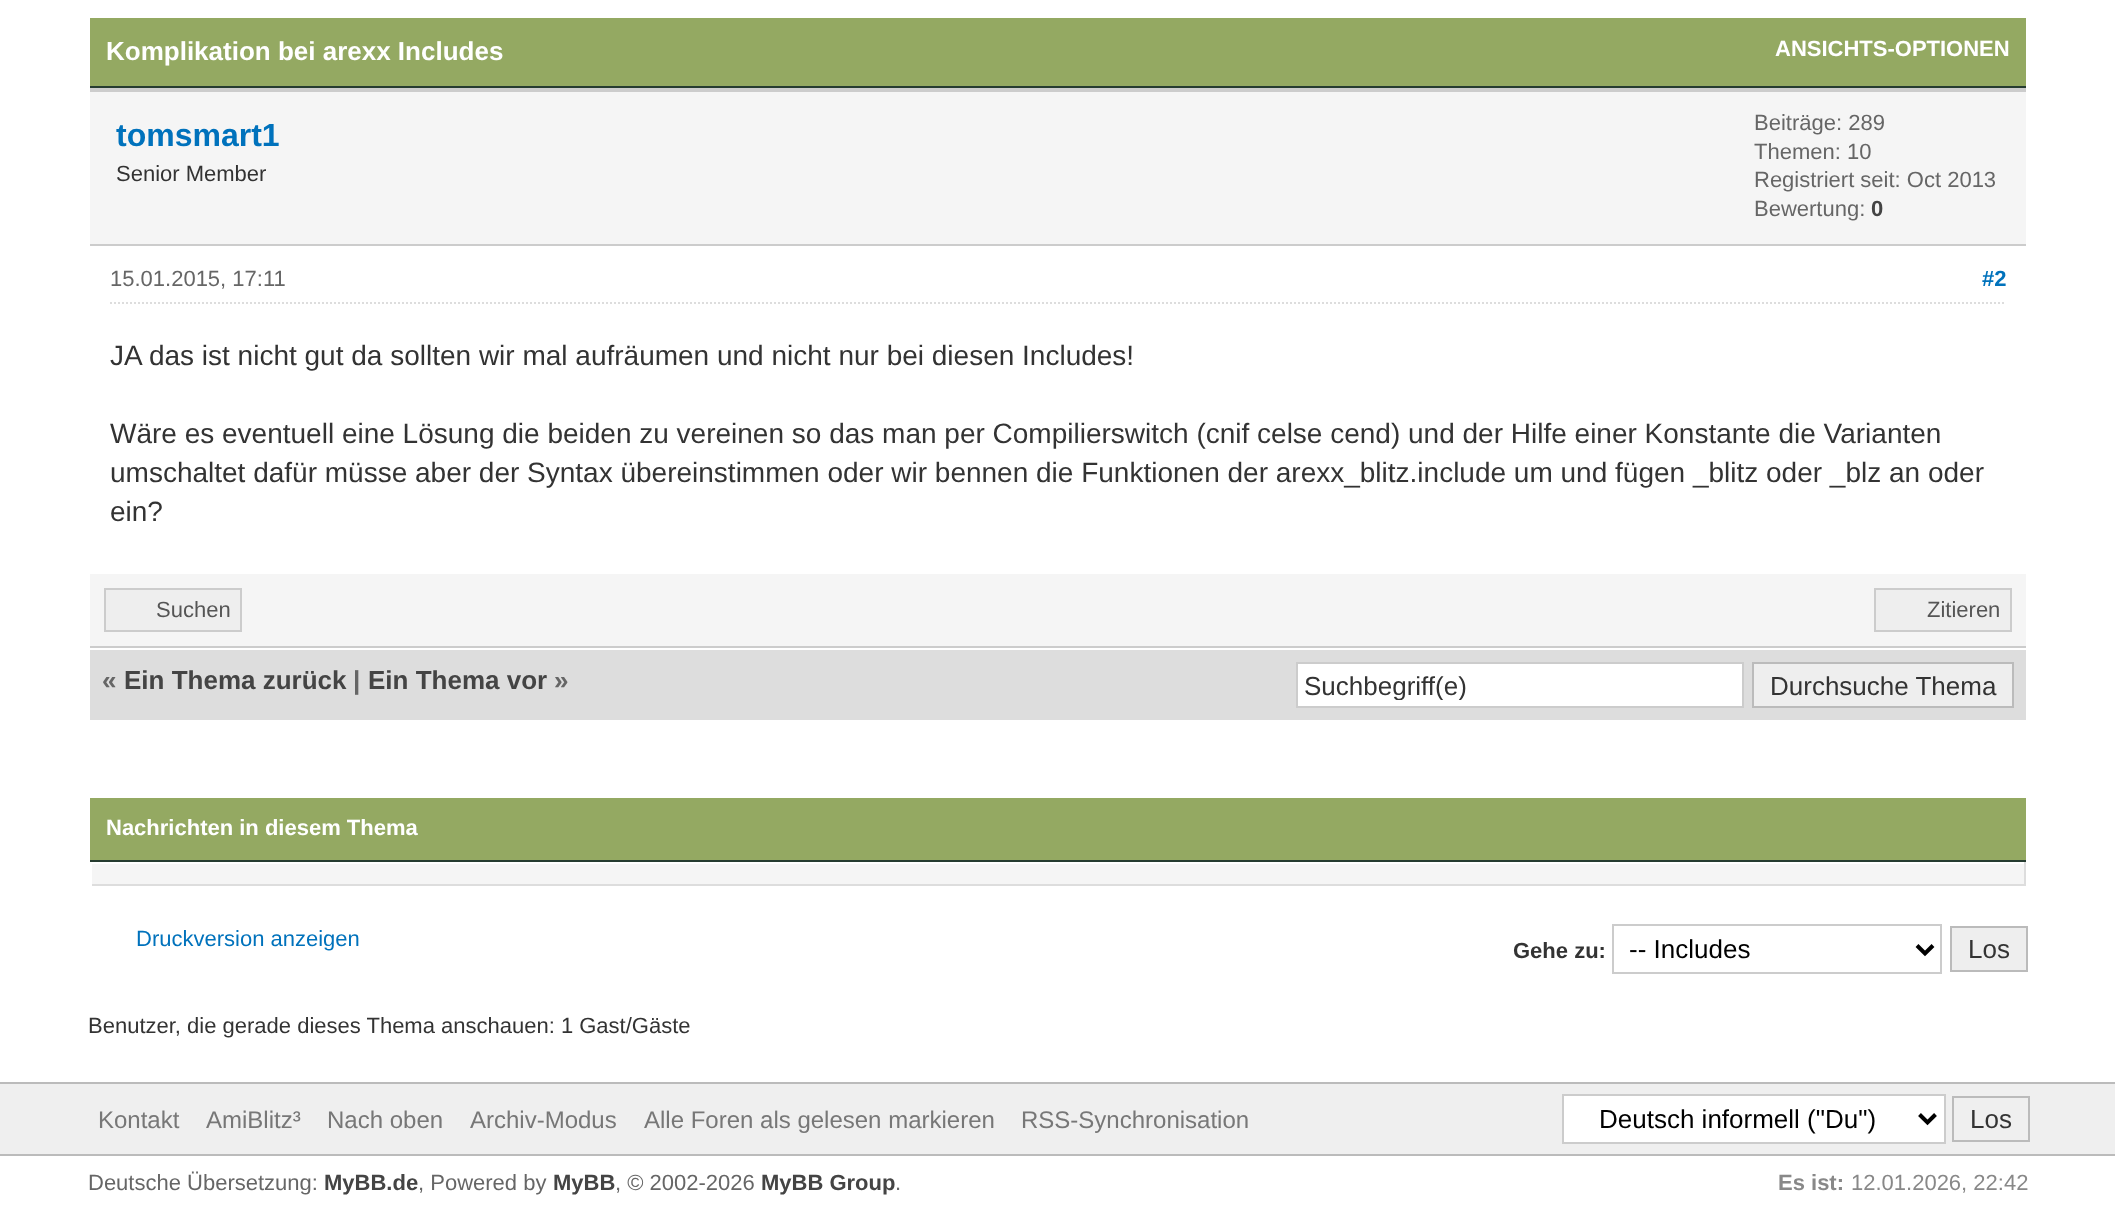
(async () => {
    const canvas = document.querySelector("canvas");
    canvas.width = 2115;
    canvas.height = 1224;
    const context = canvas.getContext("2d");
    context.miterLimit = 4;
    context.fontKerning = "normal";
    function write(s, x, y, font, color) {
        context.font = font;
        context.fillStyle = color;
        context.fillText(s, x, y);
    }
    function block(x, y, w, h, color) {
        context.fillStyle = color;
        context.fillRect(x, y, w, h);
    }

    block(0, 0, 2115, 1224, "rgb(255, 255, 255)");
    block(90, 18, 1936, 68, "rgb(148, 169, 98)");
    block(90, 86, 1936, 2, "rgb(38, 60, 48)");
    write("Komplikation bei arexx Includes", 106, 60, "bold 26px Liberation Sans", "rgb(255, 255, 255)");
    write("ANSICHTS-OPTIONEN", 1775, 56, "bold 22px Liberation Sans", "rgb(255, 255, 255)");
    block(90, 92, 1936, 152, "rgb(245, 245, 245)");
    block(90, 88, 1936, 4, "rgb(204, 204, 204)");
    block(90, 244, 1936, 2, "rgb(204, 204, 204)");
    write("tomsmart1", 116, 146, "bold 32px Liberation Sans", "rgb(0, 114, 188)");
    write("Senior Member", 116, 181, "22px Liberation Sans", "rgb(51, 51, 51)");
    write("Beiträge: 289", 1754, 130, "22px Liberation Sans", "rgb(102, 102, 102)");
    write("Themen: 10", 1754, 159, "22px Liberation Sans", "rgb(102, 102, 102)");
    write("Registriert seit: Oct 2013", 1754, 187, "22px Liberation Sans", "rgb(102, 102, 102)");
    write("Bewertung:", 1754, 216, "22px Liberation Sans", "rgb(102, 102, 102)");
    write("0", 1871, 216, "bold 22px Liberation Sans", "rgb(68, 68, 68)");
    context.beginPath();
    context.moveTo(110, 303);
    context.lineTo(2006, 303);
    context.strokeStyle = "rgb(221, 221, 221)";
    context.lineWidth = 2;
    context.setLineDash([2, 2]);
    context.stroke();
    write("15.01.2015, 17:11", 110, 286, "22px Liberation Sans", "rgb(102, 102, 102)");
    write("#2", 1982, 286, "bold 22px Liberation Sans", "rgb(0, 114, 188)");
    write("JA das ist nicht gut da sollten wir mal aufräumen und nicht nur bei diesen Includes!", 110, 365, "28px Liberation Sans", "rgb(51, 51, 51)");
    write("Wäre es eventuell eine Lösung die beiden zu vereinen so das man per Compilierswitch (cnif celse cend) und der Hilfe einer Konstante die Varianten", 110, 443, "28px Liberation Sans", "rgb(51, 51, 51)");
    write("umschaltet dafür müsse aber der Syntax übereinstimmen oder wir bennen die Funktionen der arexx_blitz.include um und fügen _blitz oder _blz an oder", 110, 482, "28px Liberation Sans", "rgb(51, 51, 51)");
    write("ein?", 110, 521, "28px Liberation Sans", "rgb(51, 51, 51)");
    block(90, 574, 1936, 72, "rgb(245, 245, 245)");
    block(90, 646, 1936, 2, "rgb(204, 204, 204)");
    context.fillStyle = "rgb(238, 238, 238)";
    context.beginPath();
    context.rect(105, 589, 136, 42);
    context.fill();
    context.strokeStyle = "rgb(204, 204, 204)";
    context.setLineDash([]);
    context.stroke();
    write("Suchen", 156, 617, "22px Liberation Sans", "rgb(85, 85, 85)");
    context.fillStyle = "rgb(238, 238, 238)";
    context.beginPath();
    context.rect(1875, 589, 136, 42);
    context.fill();
    context.stroke();
    write("Zitieren", 1927, 617, "22px Liberation Sans", "rgb(85, 85, 85)");
    block(90, 650, 1936, 70, "rgb(221, 221, 221)");
    write("«", 102, 689, "bold 26px Liberation Sans", "rgb(102, 102, 102)");
    write("Ein Thema zurück", 124, 689, "bold 26px Liberation Sans", "rgb(68, 68, 68)");
    write("|", 353, 689, "bold 26px Liberation Sans", "rgb(102, 102, 102)");
    write("Ein Thema vor", 368, 689, "bold 26px Liberation Sans", "rgb(68, 68, 68)");
    write("»", 554, 689, "bold 26px Liberation Sans", "rgb(102, 102, 102)");
    context.fillStyle = "rgb(255, 255, 255)";
    context.beginPath();
    context.rect(1297, 663, 446, 44);
    context.fill();
    context.stroke();
    context.save();
    context.beginPath();
    context.rect(1304, 670, 432, 30);
    context.clip();
    write("Suchbegriff(e)", 1304, 695, "26px Liberation Sans", "rgb(51, 51, 51)");
    context.restore();
    context.fillStyle = "rgb(238, 238, 238)";
    context.beginPath();
    context.rect(1753, 663, 260, 44);
    context.fill();
    context.strokeStyle = "rgb(187, 187, 187)";
    context.stroke();
    write("Durchsuche Thema", 1770, 695, "26px Liberation Sans", "rgb(51, 51, 51)");
    block(90, 798, 1936, 62, "rgb(148, 169, 98)");
    block(90, 860, 1936, 2, "rgb(38, 60, 48)");
    write("Nachrichten in diesem Thema", 106, 835, "bold 22px Liberation Sans", "rgb(255, 255, 255)");
    block(92, 864, 1932, 20, "rgb(245, 245, 245)");
    block(2024, 862, 2, 24, "rgb(221, 221, 221)");
    block(90, 884, 1936, 2, "rgb(221, 221, 221)");
    block(90, 884, 2, 2, "rgb(255, 255, 255)");
    write("Druckversion anzeigen", 136, 946, "22px Liberation Sans", "rgb(0, 114, 188)");
    write("Gehe zu:", 1513, 958, "bold 22px Liberation Sans", "rgb(51, 51, 51)");
    context.strokeStyle = "rgb(204, 204, 204)";
    context.strokeRect(1613, 925, 328, 48);
    context.beginPath();
    context.moveTo(1917, 945.5);
    context.lineTo(1925, 953.5);
    context.lineTo(1933, 945.5);
    context.strokeStyle = "rgb(0, 0, 0)";
    context.lineWidth = 4;
    context.stroke();
    write("-- Includes", 1629, 958, "26px Liberation Sans", "rgb(0, 0, 0)");
    context.fillStyle = "rgb(238, 238, 238)";
    context.beginPath();
    context.rect(1951, 927, 76, 44);
    context.fill();
    context.strokeStyle = "rgb(187, 187, 187)";
    context.lineWidth = 2;
    context.stroke();
    write("Los", 1968, 958, "26px Liberation Sans", "rgb(51, 51, 51)");
    write("Benutzer, die gerade dieses Thema anschauen: 1 Gast/Gäste", 88, 1033, "22px Liberation Sans", "rgb(51, 51, 51)");
    block(0, 1084, 2115, 70, "rgb(239, 239, 239)");
    block(0, 1082, 2115, 2, "rgb(187, 187, 187)");
    block(0, 1154, 2115, 2, "rgb(187, 187, 187)");
    write("Kontakt", 98, 1128, "24px Liberation Sans", "rgb(119, 119, 119)");
    write("AmiBlitz³", 206, 1128, "24px Liberation Sans", "rgb(119, 119, 119)");
    write("Nach oben", 327, 1128, "24px Liberation Sans", "rgb(119, 119, 119)");
    write("Archiv-Modus", 470, 1128, "24px Liberation Sans", "rgb(119, 119, 119)");
    write("Alle Foren als gelesen markieren", 644, 1128, "24px Liberation Sans", "rgb(119, 119, 119)");
    write("RSS-Synchronisation", 1021, 1128, "24px Liberation Sans", "rgb(119, 119, 119)");
    context.fillStyle = "rgb(255, 255, 255)";
    context.beginPath();
    context.rect(1563, 1095, 382, 48);
    context.fill();
    context.strokeStyle = "rgb(204, 204, 204)";
    context.stroke();
    context.beginPath();
    context.moveTo(1919.5, 1114.5);
    context.lineTo(1927.5, 1122.5);
    context.lineTo(1935.5, 1114.5);
    context.strokeStyle = "rgb(0, 0, 0)";
    context.lineWidth = 4;
    context.stroke();
    write("Deutsch informell (\"Du\")", 1599, 1128, "26px Liberation Sans", "rgb(0, 0, 0)");
    context.strokeStyle = "rgb(187, 187, 187)";
    context.lineWidth = 2;
    context.strokeRect(1953, 1097, 76, 44);
    write("Los", 1970, 1128, "26px Liberation Sans", "rgb(51, 51, 51)");
    write("Deutsche Übersetzung:", 88, 1190, "22px Liberation Sans", "rgb(102, 102, 102)");
    write("MyBB.de", 324, 1190, "bold 22px Liberation Sans", "rgb(68, 68, 68)");
    write(", Powered by", 418, 1190, "22px Liberation Sans", "rgb(102, 102, 102)");
    write("MyBB", 553, 1190, "bold 22px Liberation Sans", "rgb(68, 68, 68)");
    write(", © 2002-2026", 615, 1190, "22px Liberation Sans", "rgb(102, 102, 102)");
    write("MyBB Group", 761, 1190, "bold 22px Liberation Sans", "rgb(68, 68, 68)");
    write(".", 895, 1190, "22px Liberation Sans", "rgb(102, 102, 102)");
    write("Es ist:", 1778, 1190, "bold 22px Liberation Sans", "rgb(136, 136, 136)");
    write("12.01.2026, 22:42", 1851, 1190, "22px Liberation Sans", "rgb(136, 136, 136)");
})();
